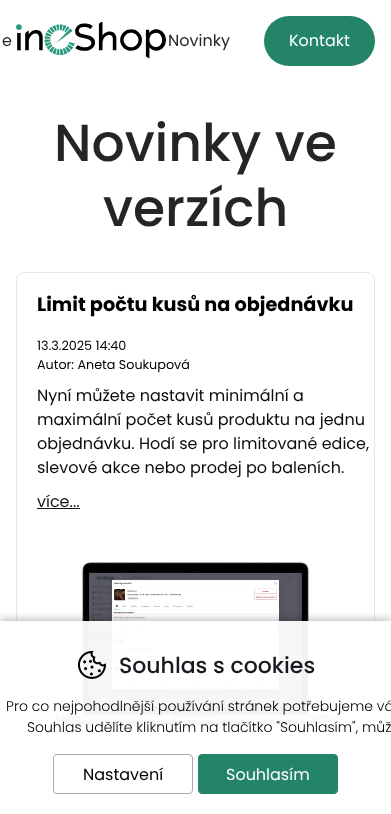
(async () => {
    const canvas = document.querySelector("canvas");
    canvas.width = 391;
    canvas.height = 814;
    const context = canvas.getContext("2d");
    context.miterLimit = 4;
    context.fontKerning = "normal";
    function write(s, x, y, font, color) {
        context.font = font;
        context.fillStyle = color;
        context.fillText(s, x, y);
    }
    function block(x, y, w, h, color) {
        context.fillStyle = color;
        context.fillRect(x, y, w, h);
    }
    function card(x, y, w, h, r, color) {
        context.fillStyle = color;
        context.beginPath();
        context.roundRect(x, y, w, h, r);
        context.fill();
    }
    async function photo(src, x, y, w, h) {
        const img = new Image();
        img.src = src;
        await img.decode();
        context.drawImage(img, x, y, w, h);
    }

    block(0, 0, 391, 814, "rgb(255, 255, 255)");
    await photo("media/1.png", 16, 22, 150, 36);
    write("e", 2, 46, "16px Poppins", "rgb(37, 37, 37)");
    write("Novinky", 168, 46, "16px Poppins", "rgb(37, 37, 37)");
    card(264, 16, 111, 50, 25, "rgb(36, 132, 103)");
    write("Kontakt", 289, 46, "16px Poppins", "rgb(255, 255, 255)");
    write("Novinky ve", 54, 161, "500 52px Poppins", "rgb(37, 37, 37)");
    write("verzích", 103, 226, "500 52px Poppins", "rgb(37, 37, 37)");
    context.beginPath();
    context.roundRect(16.5, 272.5, 358, 485, 7.5);
    context.strokeStyle = "rgb(231, 231, 231)";
    context.stroke();
    write("Limit počtu kusů na objednávku", 37, 311, "bold 19.25px Poppins", "rgb(0, 0, 0)");
    write("13.3.2025 14:40", 37, 350, "12.75px Poppins", "rgb(0, 0, 0)");
    write("Autor: Aneta Soukupová", 37, 369, "12.75px Poppins", "rgb(0, 0, 0)");
    write("Nyní můžete nastavit minimální a", 37, 401, "16px Poppins", "rgb(12, 12, 12)");
    write("maximální počet kusů produktu na jednu", 37, 425, "16px Poppins", "rgb(12, 12, 12)");
    write("objednávku. Hodí se pro limitované edice,", 37, 449, "16px Poppins", "rgb(12, 12, 12)");
    write("slevové akce nebo prodej po baleních.", 37, 473, "16px Poppins", "rgb(12, 12, 12)");
    write("více...", 37, 507, "16px Poppins", "rgb(21, 21, 21)");
    block(37, 508, 43, 1, "rgb(21, 21, 21)");
    await photo("media/2.png", 56, 562, 279, 164);
    context.beginPath();
    context.roundRect(16.5, 765.5, 358, 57, 7.5);
    context.stroke();
    context.save();
    context.beginPath();
    context.rect(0, 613, 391, 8);
    context.clip();
    context.fillStyle = "rgba(0, 0, 0, 0.25)";
    context.filter = "blur(4px)";
    context.beginPath();
    context.rect(0, 619, 391, 193);
    context.fill();
    context.filter = "none";
    context.restore();
    block(16, 621, 359, 193, "rgba(255, 255, 255, 0.95)");
    await photo("media/3.png", 78, 650, 28, 29);
    write("Souhlas s cookies", 119, 673, "500 22px Poppins", "rgb(23, 25, 30)");
    write("Pro co nejpohodlnější používání stránek potřebujeme vá", 6, 711, "300 14px Poppins", "rgb(0, 0, 0)");
    write("Souhlas udělíte kliknutím na tlačítko \"Souhlasím\", můž", 27, 732, "300 14px Poppins", "rgb(0, 0, 0)");
    context.beginPath();
    context.roundRect(53.5, 754.5, 139, 39, 3.5);
    context.strokeStyle = "rgb(170, 170, 170)";
    context.stroke();
    write("Nastavení", 83, 780, "16px Poppins", "rgb(0, 0, 0)");
    context.fillStyle = "rgb(36, 132, 103)";
    context.beginPath();
    context.roundRect(198.5, 754.5, 139, 39, 3.5);
    context.fill();
    context.strokeStyle = "rgb(36, 132, 103)";
    context.stroke();
    write("Souhlasím", 226, 780, "16px Poppins", "rgb(255, 255, 255)");
})();
